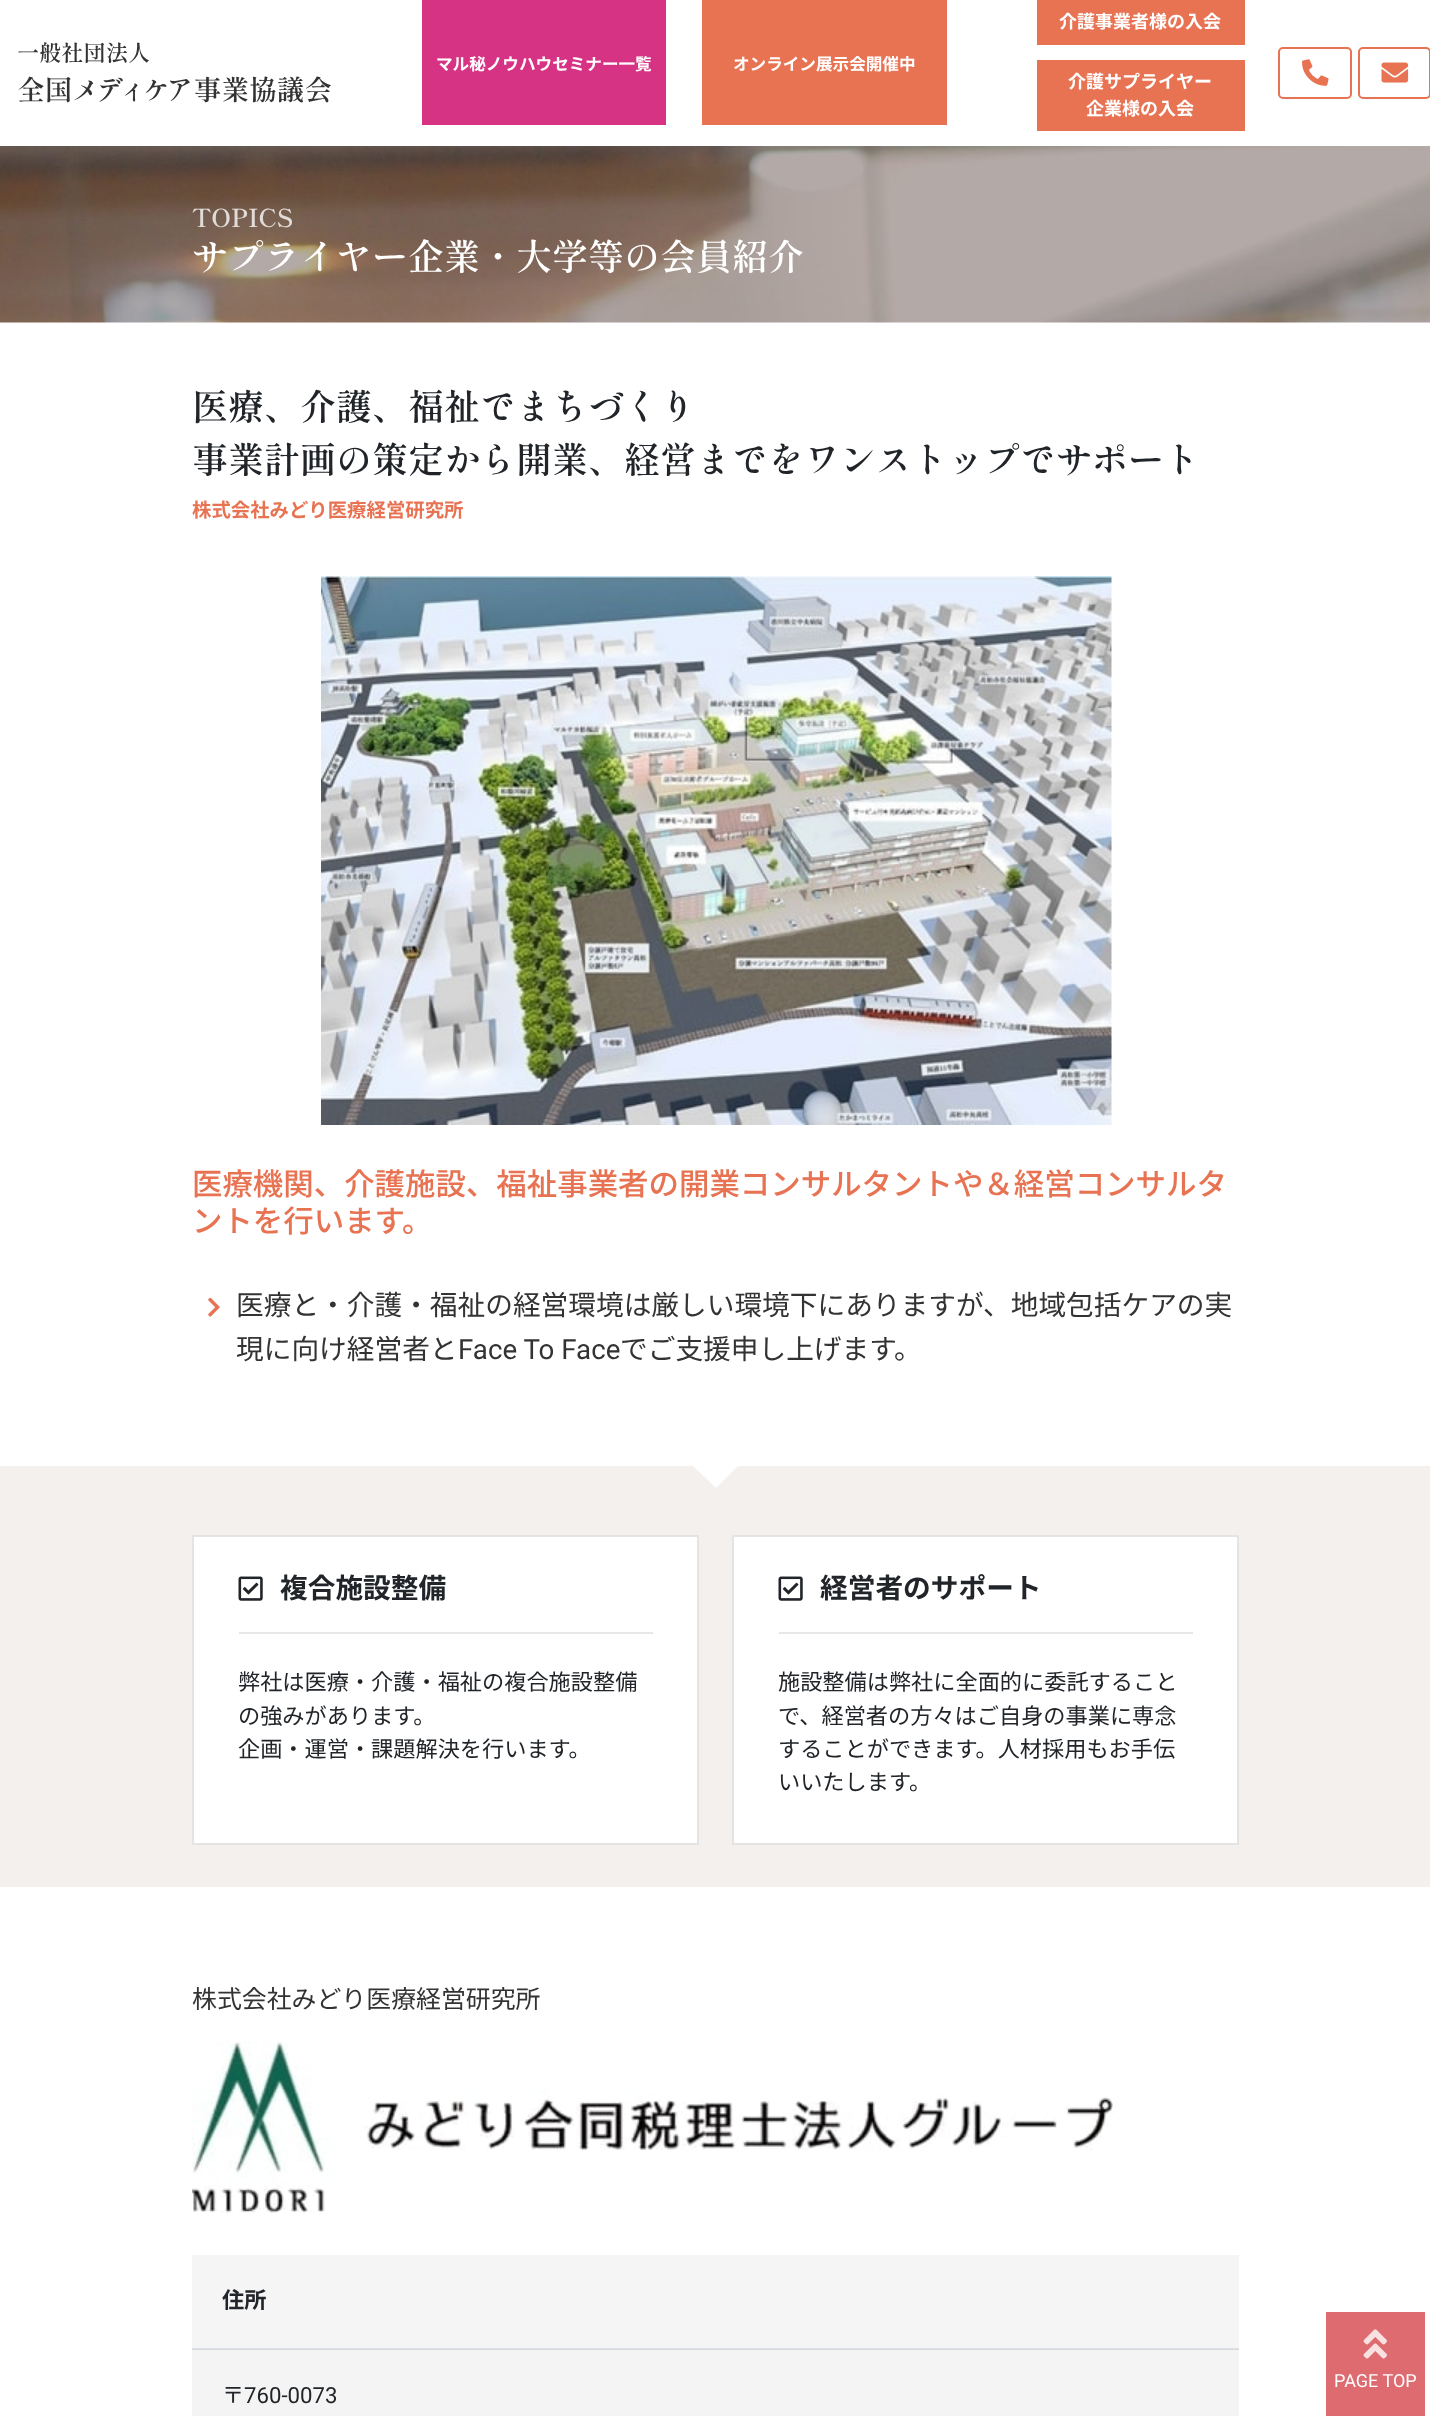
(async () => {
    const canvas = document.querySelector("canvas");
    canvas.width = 1430;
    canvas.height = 2416;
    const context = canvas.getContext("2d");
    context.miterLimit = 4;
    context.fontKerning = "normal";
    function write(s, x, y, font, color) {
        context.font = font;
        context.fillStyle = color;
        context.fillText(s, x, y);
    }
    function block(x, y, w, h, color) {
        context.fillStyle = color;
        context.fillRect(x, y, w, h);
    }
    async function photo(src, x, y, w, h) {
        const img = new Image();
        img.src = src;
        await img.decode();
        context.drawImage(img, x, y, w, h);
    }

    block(0, 0, 1430, 2416, "rgb(255, 255, 255)");
    block(192, 2350, 1047, 66, "rgb(244, 244, 244)");
    write("一般社団法人", 17, 61, "600 22.2px 'Shippori Mincho B1'", "rgb(51, 51, 51)");
    write("全国", 17, 100, "600 27.7px 'Shippori Mincho B1'", "rgb(51, 51, 51)");
    context.letterSpacing = "-4px";
    write("メディケ", 72, 100, "600 27.7px 'Shippori Mincho B1'", "rgb(51, 51, 51)");
    context.letterSpacing = "0px";
    write("ア事業協議会", 166, 100, "600 27.7px 'Shippori Mincho B1'", "rgb(51, 51, 51)");
    block(422, 0, 244, 125, "rgb(214, 51, 132)");
    write("マル秘ノウハウセミナー一覧", 436, 70, "bold 16.6px Noto Sans JP", "rgb(255, 255, 255)");
    block(702, 0, 245, 125, "rgb(232, 115, 83)");
    write("オンライン展示会開催中", 733, 70, "bold 16.6px Noto Sans JP", "rgb(255, 255, 255)");
    block(1037, 0, 208, 45, "rgb(232, 115, 83)");
    write("介護事業者様の入会", 1059, 28, "bold 18px Noto Sans JP", "rgb(255, 255, 255)");
    block(1037, 60, 208, 71, "rgb(232, 115, 83)");
    write("介護サプライヤー", 1068, 88, "bold 18px Noto Sans JP", "rgb(255, 255, 255)");
    write("企業様の入会", 1086, 115, "bold 18px Noto Sans JP", "rgb(255, 255, 255)");
    context.beginPath();
    context.roundRect(1279, 48, 72, 50, 4);
    context.strokeStyle = "rgb(232, 115, 83)";
    context.lineWidth = 2;
    context.stroke();
    await photo("media/1.png", 1302, 59, 27, 27);
    context.beginPath();
    context.roundRect(1359, 48, 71, 50, 4);
    context.stroke();
    await photo("media/2.png", 1381, 62, 28, 21);
    await photo("media/3.png", 0, 146, 1430, 177);
    write("TOPICS", 192, 227, "600 24.9px 'Shippori Mincho B1'", "rgb(225, 220, 216)");
    write("サプライヤー企業・大学等の会員紹介", 192, 270, "600 36px 'Shippori Mincho B1'", "rgb(255, 255, 255)");
    write("医療、介護、福祉でまちづくり", 192, 420, "600 36px 'Shippori Mincho B1'", "rgb(33, 37, 41)");
    write("事業計画の策定から開業、経営までをワンストップでサポート", 192, 473, "600 36px 'Shippori Mincho B1'", "rgb(33, 37, 41)");
    write("株式会社みどり医療経営研究所", 192, 517, "bold 19.4px Noto Sans JP", "rgb(232, 115, 83)");
    await photo("media/4.png", 321, 576, 791, 549);
    write("医療機関、介護施設、福祉事業者の開業コンサルタントや＆経営コンサルタ", 192, 1195, "500 30.45px Noto Sans JP", "rgb(232, 115, 83)");
    write("ントを行います。", 192, 1232, "500 30.45px Noto Sans JP", "rgb(232, 115, 83)");
    await photo("media/5.png", 208, 1297, 12, 20);
    write("医療と・介護・福祉の経営環境は厳しい環境下にありますが、地域包括ケアの実", 236, 1315, "27.7px Noto Sans JP", "rgb(51, 51, 51)");
    write("現に向け経営者と", 236, 1359, "27.7px Noto Sans JP", "rgb(51, 51, 51)");
    write("Face To Face", 458, 1359, "27.7px Roboto", "rgb(51, 51, 51)");
    write("でご支援申し上げます。", 620, 1359, "27.7px Noto Sans JP", "rgb(51, 51, 51)");
    block(0, 1466, 1430, 421, "rgb(244, 240, 237)");
    context.fillStyle = "rgb(255, 255, 255)";
    context.beginPath();
    context.moveTo(693, 1466);
    context.lineTo(738, 1466);
    context.lineTo(716, 1488);
    context.closePath();
    context.fill();
    context.beginPath();
    context.rect(193, 1536, 505, 308);
    context.fill();
    context.strokeStyle = "rgb(228, 228, 228)";
    context.stroke();
    block(239, 1632, 414, 2, "rgb(232, 231, 231)");
    await photo("media/6.png", 238, 1576, 25, 25);
    write("複合施設整備", 280, 1598, "bold 27.7px Noto Sans JP", "rgb(33, 37, 41)");
    write("弊社は医療・介護・福祉の複合施設整備", 238, 1690, "22.2px Noto Sans JP", "rgb(33, 37, 41)");
    write("の強みがあります。", 238, 1724, "22.2px Noto Sans JP", "rgb(33, 37, 41)");
    write("企画・運営・課題解決を行います。", 238, 1757, "22.2px Noto Sans JP", "rgb(33, 37, 41)");
    context.fillStyle = "rgb(255, 255, 255)";
    context.beginPath();
    context.rect(733, 1536, 505, 308);
    context.fill();
    context.stroke();
    block(779, 1632, 414, 2, "rgb(232, 231, 231)");
    await photo("media/6.png", 778, 1576, 25, 25);
    write("経営者のサポート", 820, 1598, "bold 27.7px Noto Sans JP", "rgb(33, 37, 41)");
    write("施設整備は弊社に全面的に委託すること", 778, 1690, "22.2px Noto Sans JP", "rgb(33, 37, 41)");
    write("で、経営者の方々はご自身の事業に専念", 778, 1724, "22.2px Noto Sans JP", "rgb(33, 37, 41)");
    write("することができます。人材採用もお手伝", 778, 1757, "22.2px Noto Sans JP", "rgb(33, 37, 41)");
    write("いいたします。", 778, 1790, "22.2px Noto Sans JP", "rgb(33, 37, 41)");
    write("株式会社みどり医療経営研究所", 192, 2008, "24.9px Noto Sans JP", "rgb(51, 51, 51)");
    await photo("media/7.png", 192, 2041, 921, 172);
    block(192, 2255, 1047, 93, "rgb(245, 245, 245)");
    block(192, 2348, 1047, 1, "rgb(222, 226, 230)");
    block(192, 2349, 1047, 1, "rgb(213, 217, 221)");
    write("住所", 222, 2308, "bold 22.2px Noto Sans JP", "rgb(33, 37, 41)");
    write("〒", 222, 2403, "22.2px Noto Sans JP", "rgb(33, 37, 41)");
    write("760-0073", 244, 2403, "22.2px Roboto", "rgb(33, 37, 41)");
    block(1326, 2312, 99, 104, "rgb(222, 107, 112)");
    await photo("media/8.png", 1363, 2329, 24, 30);
    write("PAGE TOP", 1334, 2387, "18px Roboto", "rgb(255, 255, 255)");
})();
